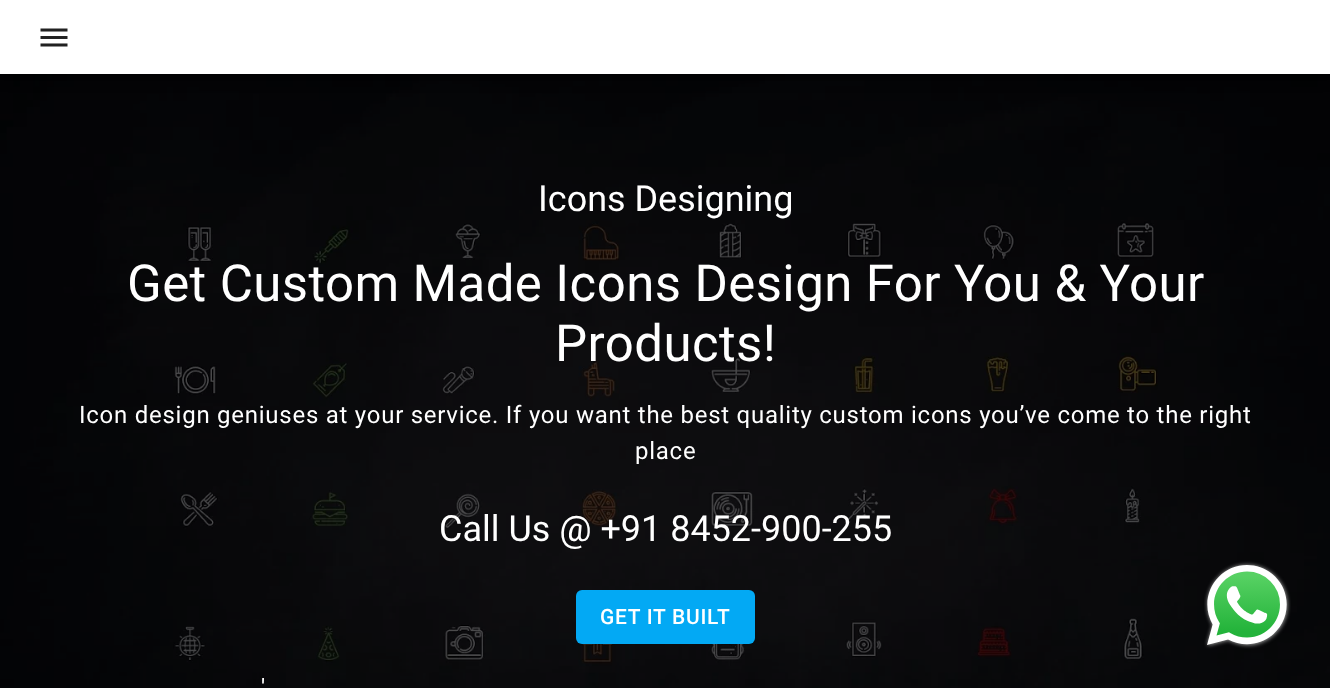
(async () => {
    const canvas = document.querySelector("canvas");
    canvas.width = 1330;
    canvas.height = 688;
    const context = canvas.getContext("2d");
    context.miterLimit = 4;
    context.fontKerning = "normal";
    function write(s, x, y, font, color) {
        context.font = font;
        context.fillStyle = color;
        context.fillText(s, x, y);
    }
    function block(x, y, w, h, color) {
        context.fillStyle = color;
        context.fillRect(x, y, w, h);
    }
    function card(x, y, w, h, r, color) {
        context.fillStyle = color;
        context.beginPath();
        context.roundRect(x, y, w, h, r);
        context.fill();
    }
    async function photo(src, x, y, w, h) {
        const img = new Image();
        img.src = src;
        await img.decode();
        context.drawImage(img, x, y, w, h);
    }

    block(0, 0, 1330, 688, "rgb(255, 255, 255)");
    await photo("media/2.png", 0, 74, 1330, 614);
    context.fillStyle = "rgba(0, 0, 0, 0.28)";
    context.filter = "blur(6px)";
    context.beginPath();
    context.rect(0, 6, 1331, 74);
    context.fill();
    context.filter = "none";
    context.fillStyle = "rgba(0, 0, 0, 0.14)";
    context.filter = "blur(3px)";
    context.beginPath();
    context.rect(0, 0, 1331, 74);
    context.fill();
    context.filter = "none";
    block(0, 0, 1330, 74, "rgb(255, 255, 255)");
    await photo("media/1.png", 40, 28, 28, 19);
    write("Icons Designing", 538, 211, "36px Roboto", "rgb(255, 255, 255)");
    context.letterSpacing = "0.4px";
    write("Get Custom Made Icons Design For You & Your", 127, 301, "51px Roboto", "rgb(255, 255, 255)");
    write("Products!", 555, 361, "51px Roboto", "rgb(255, 255, 255)");
    context.letterSpacing = "0.75px";
    write("Icon design geniuses at your service. If you want the best quality custom icons you’ve come to the right", 79, 423, "24px Roboto", "rgb(255, 255, 255)");
    write("place", 635, 459, "24px Roboto", "rgb(255, 255, 255)");
    context.letterSpacing = "0px";
    write("Call Us @ +91 8452-900-255", 439, 541, "36px Roboto", "rgb(255, 255, 255)");
    card(576, 590, 179, 54, 6, "rgb(3, 169, 244)");
    context.letterSpacing = "0.75px";
    write("GET IT BUILT", 600, 624, "500 21px Roboto", "rgb(255, 255, 255)");
    context.letterSpacing = "0px";
    write("'", 261, 696, "24px Roboto", "rgb(255, 255, 255)");
    await photo("media/3.png", 1204, 561, 87, 88);
})();
